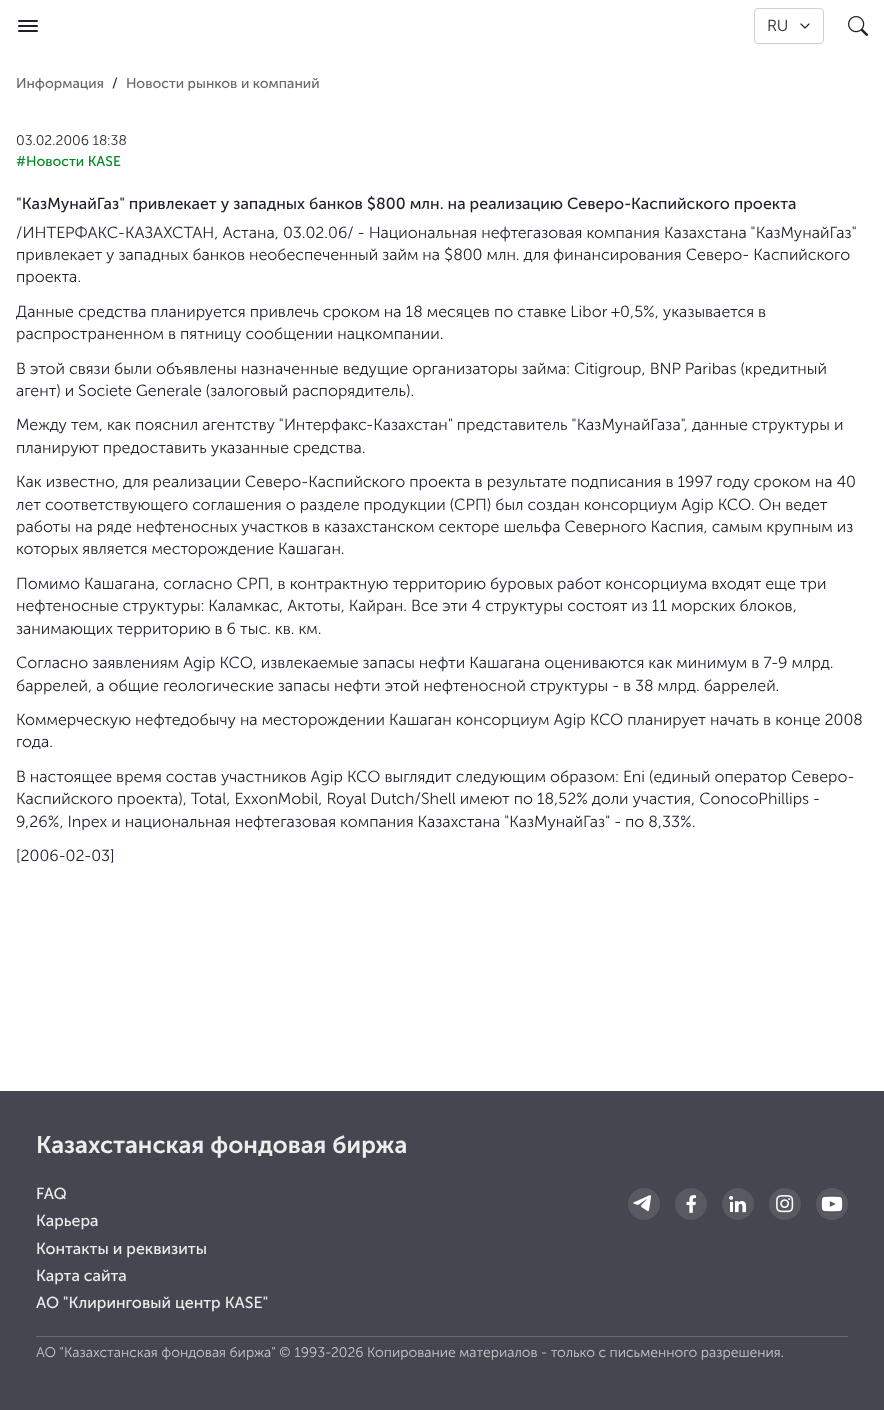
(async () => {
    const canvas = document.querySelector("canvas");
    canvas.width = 884;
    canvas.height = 1410;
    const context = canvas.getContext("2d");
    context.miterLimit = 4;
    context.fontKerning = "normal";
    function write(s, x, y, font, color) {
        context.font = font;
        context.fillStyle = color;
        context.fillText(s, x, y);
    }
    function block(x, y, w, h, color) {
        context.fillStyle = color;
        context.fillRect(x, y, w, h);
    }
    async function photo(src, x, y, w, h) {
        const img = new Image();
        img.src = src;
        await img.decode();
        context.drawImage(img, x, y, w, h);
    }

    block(0, 0, 884, 1410, "rgb(255, 255, 255)");
    await photo("media/1.png", 18, 20, 20, 12);
    context.beginPath();
    context.roundRect(754.5, 8.5, 69, 35, 3.5);
    context.strokeStyle = "rgb(209, 209, 209)";
    context.stroke();
    write("RU", 767, 31, "300 16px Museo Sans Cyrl", "rgb(30, 33, 43)");
    await photo("media/2.png", 800, 23, 10, 6);
    await photo("media/3.png", 848, 16, 20, 20);
    write("Информация", 16, 88, "14px Museo Sans Cyrl", "rgb(105, 105, 105)");
    write("/", 112, 88, "14px Museo Sans Cyrl", "rgb(30, 33, 43)");
    write("Новости рынков и компаний", 126, 88, "14px Museo Sans Cyrl", "rgb(105, 105, 105)");
    write("03.02.2006 18:38", 16, 145, "300 14px Museo Sans Cyrl", "rgb(30, 33, 43)");
    write("#Новости KASE", 16, 166, "14px Museo Sans Cyrl", "rgb(3, 135, 38)");
    write("\"КазМунайГаз\" привлекает у западных банков $800 млн. на реализацию Северо-Каспийского проекта", 16, 209, "16px Museo Sans Cyrl", "rgb(30, 33, 43)");
    write("/ИНТЕРФАКС-КАЗАХСТАН, Астана, 03.02.06/ - Национальная нефтегазовая компания Казахстана \"КазМунайГаз\"", 16, 238, "300 16px Museo Sans Cyrl", "rgb(30, 33, 43)");
    write("привлекает у западных банков необеспеченный займ на $800 млн. для финансирования Северо- Каспийского", 16, 260, "300 16px Museo Sans Cyrl", "rgb(30, 33, 43)");
    write("проекта.", 16, 282, "300 16px Museo Sans Cyrl", "rgb(30, 33, 43)");
    write("Данные средства планируется привлечь сроком на 18 месяцев по ставке Libor +0,5%, указывается в", 16, 317, "300 16px Museo Sans Cyrl", "rgb(30, 33, 43)");
    write("распространенном в пятницу сообщении нацкомпании.", 16, 339, "300 16px Museo Sans Cyrl", "rgb(30, 33, 43)");
    write("В этой связи были объявлены назначенные ведущие организаторы займа: Citigroup, BNP Paribas (кредитный", 16, 374, "300 16px Museo Sans Cyrl", "rgb(30, 33, 43)");
    write("агент) и Societe Generale (залоговый распорядитель).", 16, 396, "300 16px Museo Sans Cyrl", "rgb(30, 33, 43)");
    write("Между тем, как пояснил агентству \"Интерфакс-Казахстан\" представитель \"КазМунайГаза\", данные структуры и", 16, 430, "300 16px Museo Sans Cyrl", "rgb(30, 33, 43)");
    write("планируют предоставить указанные средства.", 16, 453, "300 16px Museo Sans Cyrl", "rgb(30, 33, 43)");
    write("Как известно, для реализации Северо-Каспийского проекта в результате подписания в 1997 году сроком на 40", 16, 487, "300 16px Museo Sans Cyrl", "rgb(30, 33, 43)");
    write("лет соответствующего соглашения о разделе продукции (СРП) был создан консорциум Agip KCO. Он ведет", 16, 510, "300 16px Museo Sans Cyrl", "rgb(30, 33, 43)");
    write("работы на ряде нефтеносных участков в казахстанском секторе шельфа Северного Каспия, самым крупным из", 16, 532, "300 16px Museo Sans Cyrl", "rgb(30, 33, 43)");
    write("которых является месторождение Кашаган.", 16, 554, "300 16px Museo Sans Cyrl", "rgb(30, 33, 43)");
    write("Помимо Кашагана, согласно СРП, в контрактную территорию буровых работ консорциума входят еще три", 16, 589, "300 16px Museo Sans Cyrl", "rgb(30, 33, 43)");
    write("нефтеносные структуры: Каламкас, Актоты, Кайран. Все эти 4 структуры состоят из 11 морских блоков,", 16, 611, "300 16px Museo Sans Cyrl", "rgb(30, 33, 43)");
    write("занимающих территорию в 6 тыс. кв. км.", 16, 634, "300 16px Museo Sans Cyrl", "rgb(30, 33, 43)");
    write("Согласно заявлениям Agip KCO, извлекаемые запасы нефти Кашагана оцениваются как минимум в 7-9 млрд.", 16, 668, "300 16px Museo Sans Cyrl", "rgb(30, 33, 43)");
    write("баррелей, а общие геологические запасы нефти этой нефтеносной структуры - в 38 млрд. баррелей.", 16, 691, "300 16px Museo Sans Cyrl", "rgb(30, 33, 43)");
    write("Коммерческую нефтедобычу на месторождении Кашаган консорциум Agip KCO планирует начать в конце 2008", 16, 725, "300 16px Museo Sans Cyrl", "rgb(30, 33, 43)");
    write("года.", 16, 747, "300 16px Museo Sans Cyrl", "rgb(30, 33, 43)");
    write("В настоящее время состав участников Agip KCO выглядит следующим образом: Eni (единый оператор Северо-", 16, 782, "300 16px Museo Sans Cyrl", "rgb(30, 33, 43)");
    write("Каспийского проекта), Total, ExxonMobil, Royal Dutch/Shell имеют по 18,52% доли участия, ConocoPhillips -", 16, 804, "300 16px Museo Sans Cyrl", "rgb(30, 33, 43)");
    write("9,26%, Inpex и национальная нефтегазовая компания Казахстана \"КазМунайГаз\" - по 8,33%.", 16, 827, "300 16px Museo Sans Cyrl", "rgb(30, 33, 43)");
    write("[2006-02-03]", 16, 861, "300 16px Museo Sans Cyrl", "rgb(30, 33, 43)");
    block(0, 1091, 884, 319, "rgb(69, 70, 79)");
    write("Казахстанская фондовая биржа", 36, 1153, "600 24px Museo Sans Cyrl", "rgb(236, 237, 237)");
    write("FAQ", 36, 1199, "16px Museo Sans Cyrl", "rgb(236, 237, 237)");
    write("Карьера", 36, 1226, "16px Museo Sans Cyrl", "rgb(236, 237, 237)");
    write("Контакты и реквизиты", 36, 1254, "16px Museo Sans Cyrl", "rgb(236, 237, 237)");
    write("Карта сайта", 36, 1281, "16px Museo Sans Cyrl", "rgb(236, 237, 237)");
    write("АО \"Клиринговый центр KASE\"", 36, 1308, "16px Museo Sans Cyrl", "rgb(236, 237, 237)");
    context.fillStyle = "rgb(88, 89, 97)";
    context.beginPath();
    context.arc(644, 1204, 16, 0, Math.PI * 2);
    context.fill();
    await photo("media/4.png", 633, 1195, 19, 16);
    context.beginPath();
    context.arc(691, 1204, 16, 0, Math.PI * 2);
    context.fill();
    await photo("media/5.png", 686, 1195, 10, 18);
    context.beginPath();
    context.arc(738, 1204, 16, 0, Math.PI * 2);
    context.fill();
    await photo("media/6.png", 729, 1196, 18, 17);
    context.beginPath();
    context.arc(785, 1204, 16, 0, Math.PI * 2);
    context.fill();
    await photo("media/7.png", 776, 1195, 18, 18);
    context.beginPath();
    context.arc(832, 1204, 16, 0, Math.PI * 2);
    context.fill();
    await photo("media/8.png", 821, 1196, 22, 16);
    block(36, 1336, 812, 1, "rgb(106, 107, 114)");
    write("АО \"Казахстанская фондовая биржа\" © 1993-2026 Копирование материалов - только с письменного разрешения.", 36, 1357, "300 14px Museo Sans Cyrl", "rgb(199, 200, 202)");
})();
